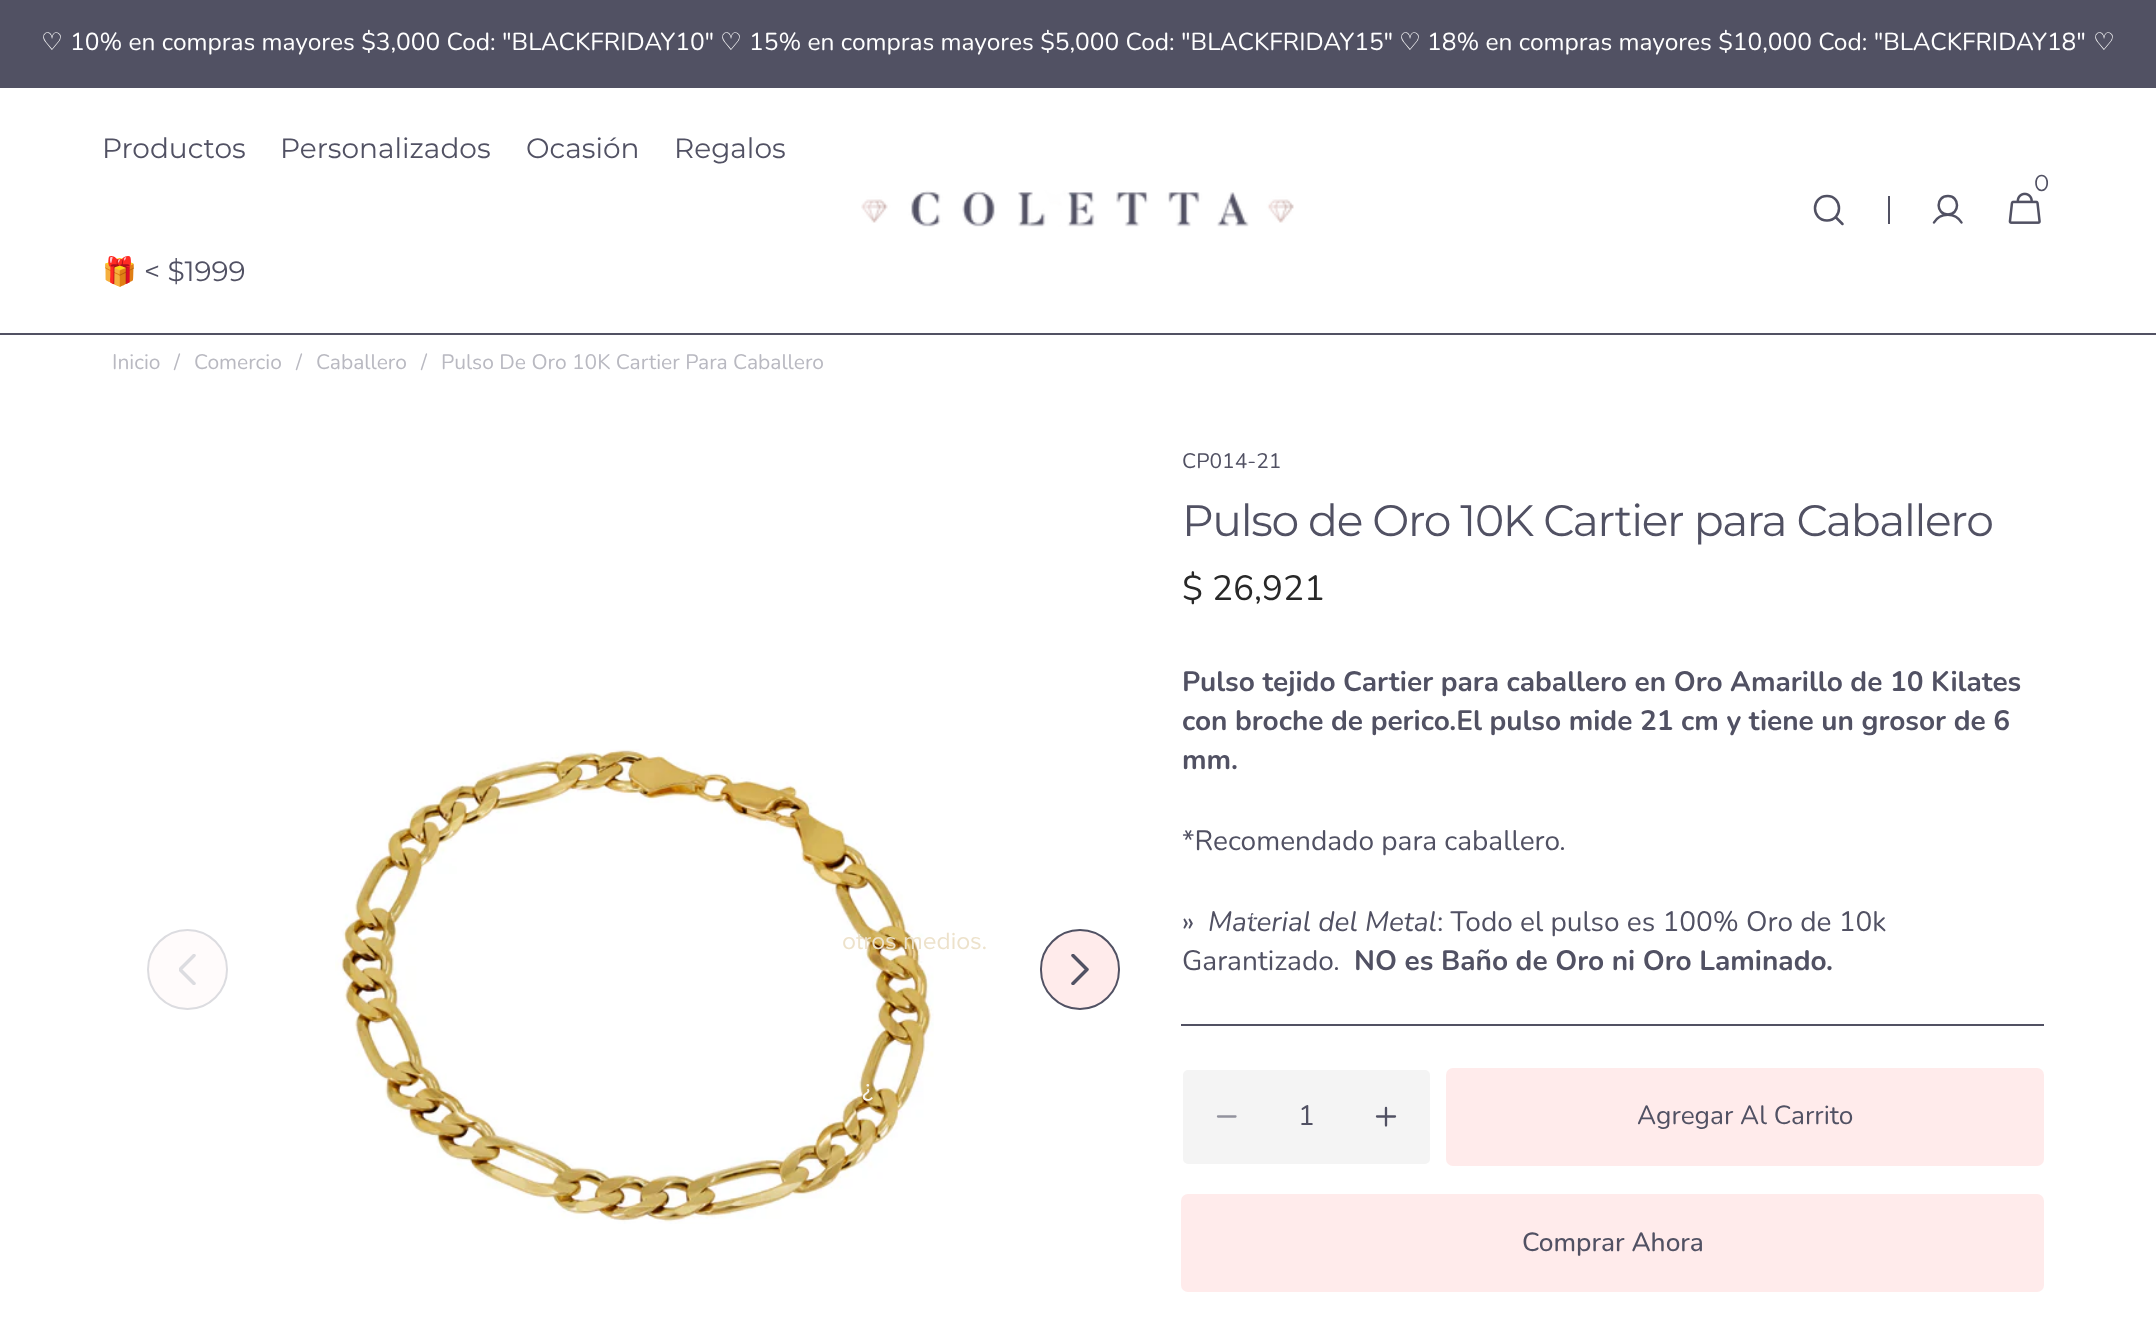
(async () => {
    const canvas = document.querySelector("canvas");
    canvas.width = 2156;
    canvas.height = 1321;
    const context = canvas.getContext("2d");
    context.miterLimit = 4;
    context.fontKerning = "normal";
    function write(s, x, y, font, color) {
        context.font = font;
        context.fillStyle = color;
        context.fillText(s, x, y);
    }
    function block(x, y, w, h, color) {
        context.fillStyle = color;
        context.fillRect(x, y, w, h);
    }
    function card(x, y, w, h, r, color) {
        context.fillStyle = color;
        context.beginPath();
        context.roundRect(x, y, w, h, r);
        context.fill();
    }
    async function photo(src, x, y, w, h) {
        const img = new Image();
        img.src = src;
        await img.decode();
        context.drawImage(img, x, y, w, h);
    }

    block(0, 0, 2156, 1321, "rgb(255, 255, 255)");
    block(0, 0, 2156, 88, "rgb(81, 81, 99)");
    write("♡", 41, 50, "24.5px DejaVu Sans", "rgb(255, 255, 255)");
    write("10% en compras mayores $3,000 Cod: \"BLACKFRIDAY10\"", 70, 50, "24.5px Nunito", "rgb(255, 255, 255)");
    write("♡", 720, 50, "24.5px DejaVu Sans", "rgb(255, 255, 255)");
    write("15% en compras mayores $5,000 Cod: \"BLACKFRIDAY15\"", 749, 50, "24.5px Nunito", "rgb(255, 255, 255)");
    write("♡", 1399, 50, "24.5px DejaVu Sans", "rgb(255, 255, 255)");
    write("18% en compras mayores $10,000 Cod: \"BLACKFRIDAY18\"", 1427, 50, "24.5px Nunito", "rgb(255, 255, 255)");
    write("♡", 2093, 50, "24.5px DejaVu Sans", "rgb(255, 255, 255)");
    write("Productos", 102, 158, "28px Montserrat", "rgb(81, 81, 99)");
    write("Personalizados", 280, 158, "28px Montserrat", "rgb(81, 81, 99)");
    write("Ocasión", 526, 158, "28px Montserrat", "rgb(81, 81, 99)");
    write("Regalos", 674, 158, "28px Montserrat", "rgb(81, 81, 99)");
    write("🎁", 102, 281, "28px Noto Color Emoji", "rgb(81, 81, 99)");
    write("< $1999", 144, 281, "28px Montserrat", "rgb(81, 81, 99)");
    write("0", 2034, 191, "23px Montserrat", "rgb(81, 81, 99)");
    await photo("media/1.png", 2008, 192, 33, 32);
    context.beginPath();
    context.moveTo(1827, 220.5);
    context.bezierCurveTo(1843, 220.5, 1843, 196, 1827, 196);
    context.bezierCurveTo(1811, 196, 1811, 220.5, 1827, 220.5);
    context.closePath();
    context.moveTo(1835.5, 217);
    context.lineTo(1842.5, 224);
    context.strokeStyle = "rgb(81, 81, 99)";
    context.lineWidth = 2.5;
    context.lineCap = "round";
    context.lineJoin = "round";
    context.stroke();
    block(1888, 196, 2, 28, "rgb(81, 81, 99)");
    context.beginPath();
    context.moveTo(1948, 214.5);
    context.bezierCurveTo(1960, 214.5, 1960, 196, 1948, 196);
    context.bezierCurveTo(1935.5, 196, 1935.5, 214.5, 1948, 214.5);
    context.closePath();
    context.lineCap = "butt";
    context.lineJoin = "miter";
    context.stroke();
    context.beginPath();
    context.moveTo(1934, 222.5);
    context.bezierCurveTo(1940, 212, 1955.5, 212, 1961.5, 222.5);
    context.lineCap = "round";
    context.lineJoin = "round";
    context.stroke();
    await photo("media/2.png", 861, 190, 433, 37);
    block(0, 333, 2156, 2, "rgb(81, 81, 99)");
    write("Inicio", 112, 369, "21px Nunito", "rgb(185, 185, 193)");
    write("/", 174, 369, "21px Nunito", "rgb(185, 185, 193)");
    write("Comercio", 194, 369, "21px Nunito", "rgb(185, 185, 193)");
    write("/", 296, 369, "21px Nunito", "rgb(185, 185, 193)");
    write("Caballero", 316, 369, "21px Nunito", "rgb(185, 185, 193)");
    write("/", 421, 369, "21px Nunito", "rgb(185, 185, 193)");
    write("Pulso De Oro 10K Cartier Para Caballero", 441, 369, "21px Nunito", "rgb(185, 185, 193)");
    await photo("media/3.png", 335, 749, 599, 475);
    context.fillStyle = "rgb(255, 251, 251)";
    context.beginPath();
    context.arc(187.5, 969.5, 39.5, 0, Math.PI * 2);
    context.fill();
    context.strokeStyle = "rgb(220, 220, 224)";
    context.lineWidth = 2;
    context.stroke();
    context.save();
    context.beginPath();
    context.rect(179, 954, 17, 31);
    context.clip();
    context.beginPath();
    context.moveTo(194, 983.5);
    context.lineTo(180, 969.5);
    context.lineTo(194, 955.5);
    context.lineWidth = 3.5;
    context.stroke();
    context.restore();
    context.fillStyle = "rgb(255, 235, 235)";
    context.beginPath();
    context.roundRect(1041, 930, 78, 79, 39);
    context.fill();
    context.strokeStyle = "rgb(81, 81, 99)";
    context.lineJoin = "miter";
    context.stroke();
    context.save();
    context.beginPath();
    context.rect(1071, 954, 18, 31);
    context.clip();
    context.beginPath();
    context.moveTo(1073, 955.5);
    context.lineTo(1087, 969.5);
    context.lineTo(1073, 983.5);
    context.lineWidth = 3.5;
    context.lineJoin = "round";
    context.stroke();
    context.restore();
    write("CP014-21", 1182, 468, "21px Nunito", "rgb(81, 81, 99)");
    context.letterSpacing = "-1.3px";
    write("Pulso de Oro 10K Cartier para Caballero", 1182, 536, "44.1px Montserrat", "rgb(81, 81, 99)");
    context.letterSpacing = "0px";
    write("$ 26,921", 1182, 600, "35px Nunito", "rgb(40, 40, 40)");
    write("Pulso tejido Cartier para caballero en Oro Amarillo de 10 Kilates", 1182, 691, "bold 28px Nunito", "rgb(81, 81, 99)");
    write("con broche de perico.El pulso mide 21 cm y tiene un grosor de 6", 1182, 730, "bold 28px Nunito", "rgb(81, 81, 99)");
    write("mm.", 1182, 769, "bold 28px Nunito", "rgb(81, 81, 99)");
    write("*Recomendado para caballero.", 1182, 850, "28px Nunito", "rgb(81, 81, 99)");
    write("»", 1182, 931, "28px Nunito", "rgb(81, 81, 99)");
    write("Material del Metal", 1208, 931, "italic 28px Nunito", "rgb(81, 81, 99)");
    write(": Todo el pulso es 100% Oro de 10k", 1437, 931, "28px Nunito", "rgb(81, 81, 99)");
    write("Garantizado.", 1182, 970, "28px Nunito", "rgb(81, 81, 99)");
    write("NO es Baño de Oro ni Oro Laminado.", 1354, 970, "bold 28px Nunito", "rgb(81, 81, 99)");
    block(1181, 1024, 863, 2, "rgb(81, 81, 99)");
    context.fillStyle = "rgb(244, 244, 244)";
    context.beginPath();
    context.roundRect(1182, 1069, 249, 96, 6);
    context.fill();
    context.strokeStyle = "rgb(255, 255, 255)";
    context.stroke();
    context.beginPath();
    context.moveTo(1235.5, 1116.5);
    context.lineTo(1218, 1116.5);
    context.strokeStyle = "rgb(146, 146, 157)";
    context.lineWidth = 2.3;
    context.stroke();
    write("1", 1298, 1125, "28px Nunito", "rgb(81, 81, 99)");
    context.beginPath();
    context.moveTo(1395, 1116.5);
    context.lineTo(1377, 1116.5);
    context.moveTo(1386, 1125.5);
    context.lineTo(1386, 1108);
    context.strokeStyle = "rgb(81, 81, 99)";
    context.stroke();
    card(1446, 1068, 598, 98, 7, "rgb(255, 235, 235)");
    write("Agregar Al Carrito", 1637, 1124, "26.25px Nunito", "rgb(81, 81, 99)");
    card(1181, 1194, 863, 98, 7, "rgb(255, 235, 235)");
    write("Comprar Ahora", 1522, 1251, "500 26.25px Nunito", "rgb(81, 81, 99)");
    write(",", 1250, 917, "24.5px Proxima Nova", "rgb(255, 255, 255)");
    write("otros medios.", 842, 949, "24.5px Proxima Nova", "rgb(237, 226, 203)");
    write("¿", 862, 1096, "24.5px Proxima Nova", "rgb(248, 245, 238)");
})();
